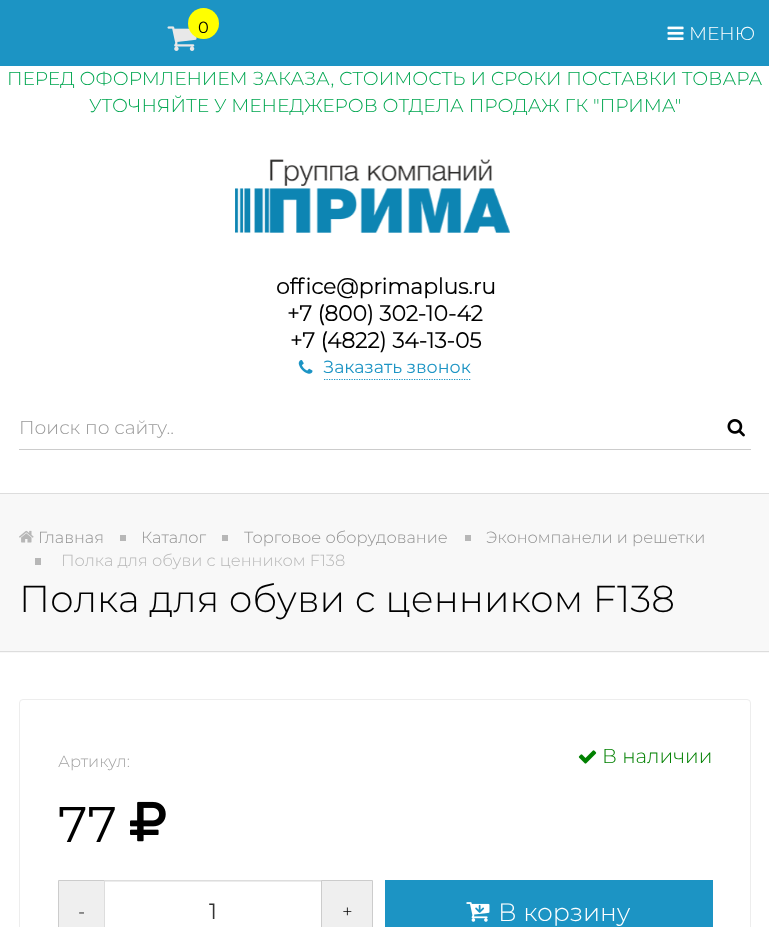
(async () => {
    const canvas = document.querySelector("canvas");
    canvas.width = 769;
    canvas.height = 927;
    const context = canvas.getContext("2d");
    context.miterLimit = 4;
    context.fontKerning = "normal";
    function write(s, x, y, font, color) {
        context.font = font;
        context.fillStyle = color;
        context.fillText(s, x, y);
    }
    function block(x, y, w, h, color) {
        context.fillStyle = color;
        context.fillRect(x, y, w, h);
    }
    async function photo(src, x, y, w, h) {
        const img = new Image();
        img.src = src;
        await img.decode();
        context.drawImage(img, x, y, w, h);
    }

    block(0, 0, 769, 927, "rgb(255, 255, 255)");
    block(0, 0, 769, 66, "rgb(28, 148, 196)");
    await photo("media/1.png", 167, 26, 30, 25);
    context.fillStyle = "rgb(255, 255, 0)";
    context.beginPath();
    context.arc(203.5, 23.5, 15.5, 0, Math.PI * 2);
    context.fill();
    write("0", 198, 33, "16.25px Montserrat", "rgb(0, 0, 0)");
    await photo("media/2.png", 667, 26, 17, 14);
    write("МЕНЮ", 689, 40, "300 18.75px Montserrat", "rgb(255, 255, 255)");
    write("ПЕРЕД ОФОРМЛЕНИЕМ ЗАКАЗА, СТОИМОСТЬ И СРОКИ ПОСТАВКИ ТОВАРА", 7, 85, "300 18.75px Montserrat", "rgb(0, 166, 80)");
    write("УТОЧНЯЙТЕ У МЕНЕДЖЕРОВ ОТДЕЛА ПРОДАЖ ГК \"ПРИМА\"", 89, 112, "300 18.75px Montserrat", "rgb(0, 166, 80)");
    await photo("media/3.png", 235, 159, 275, 74);
    write("office@primaplus.ru", 276, 294, "bold 21.75px Montserrat", "rgb(0, 0, 0)");
    write("+7 (800) 302-10-42", 287, 321, "bold 21.75px Montserrat", "rgb(0, 0, 0)");
    write("+7 (4822) 34-13-05", 290, 348, "bold 21.75px Montserrat", "rgb(0, 0, 0)");
    await photo("media/4.png", 298, 360, 15, 14);
    write("Заказать звонок", 323, 373, "17.5px Montserrat", "rgb(28, 148, 196)");
    context.beginPath();
    context.moveTo(324, 379.5);
    context.lineTo(471, 379.5);
    context.strokeStyle = "rgb(28, 148, 196)";
    context.lineWidth = 1.2;
    context.setLineDash([1.25, 1.25]);
    context.stroke();
    block(19, 449, 732, 1, "rgb(204, 204, 204)");
    write("Поиск по сайту..", 19, 434, "300 18.75px Montserrat", "rgb(153, 153, 153)");
    await photo("media/5.png", 727, 419, 18, 18);
    block(0, 494, 769, 159, "rgb(248, 248, 248)");
    block(0, 493, 769, 1, "rgb(221, 221, 221)");
    block(0, 651, 769, 1, "rgb(221, 221, 221)");
    await photo("media/6.png", 19, 530, 15, 13);
    write("Главная", 38, 543, "300 16.25px Montserrat", "rgb(147, 147, 147)");
    block(120, 535, 6, 6, "rgb(183, 183, 183)");
    write("Каталог", 141, 543, "300 16.25px Montserrat", "rgb(147, 147, 147)");
    block(222, 535, 6, 6, "rgb(183, 183, 183)");
    write("Торговое оборудование", 244, 543, "300 16.25px Montserrat", "rgb(147, 147, 147)");
    block(465, 535, 6, 6, "rgb(183, 183, 183)");
    write("Экономпанели и решетки", 486, 543, "300 16.25px Montserrat", "rgb(147, 147, 147)");
    block(35, 558, 6, 7, "rgb(183, 183, 183)");
    write("Полка для обуви с ценником F138", 61, 566, "300 16.25px Montserrat", "rgb(183, 183, 183)");
    write("Полка для обуви с ценником F138", 19, 612, "300 37.5px Montserrat", "rgb(0, 0, 0)");
    context.beginPath();
    context.roundRect(19.5, 699.5, 731, 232, 3.5);
    context.strokeStyle = "rgb(237, 237, 237)";
    context.lineWidth = 1;
    context.setLineDash([]);
    context.stroke();
    write("Артикул:", 58, 767, "300 16.25px Montserrat", "rgb(163, 163, 163)");
    await photo("media/7.png", 578, 750, 19, 14);
    write("В наличии", 602, 763, "300 20px Montserrat", "rgb(0, 128, 0)");
    write("77", 58, 842, "50px Montserrat", "rgb(0, 0, 0)");
    await photo("media/8.png", 130, 801, 36, 41);
    context.fillStyle = "rgb(239, 239, 239)";
    context.beginPath();
    context.rect(58.5, 880.5, 46, 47);
    context.fill();
    context.strokeStyle = "rgb(204, 204, 204)";
    context.stroke();
    write("-", 78, 918, "300 18.75px Montserrat", "rgb(0, 0, 0)");
    block(105, 881, 216, 1, "rgb(236, 236, 236)");
    context.strokeStyle = "rgb(221, 221, 221)";
    context.strokeRect(104.5, 880.5, 218, 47);
    write("1", 209, 919, "22px Montserrat", "rgb(51, 51, 51)");
    context.fillStyle = "rgb(239, 239, 239)";
    context.beginPath();
    context.rect(321.5, 880.5, 51, 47);
    context.fill();
    context.strokeStyle = "rgb(204, 204, 204)";
    context.stroke();
    write("+", 342, 918, "300 18.75px Montserrat", "rgb(0, 0, 0)");
    block(385, 880, 328, 47, "rgb(28, 148, 196)");
    await photo("media/9.png", 466, 902, 24, 20);
    write("В корзину", 498, 921, "300 25px Montserrat", "rgb(255, 255, 255)");
})();
